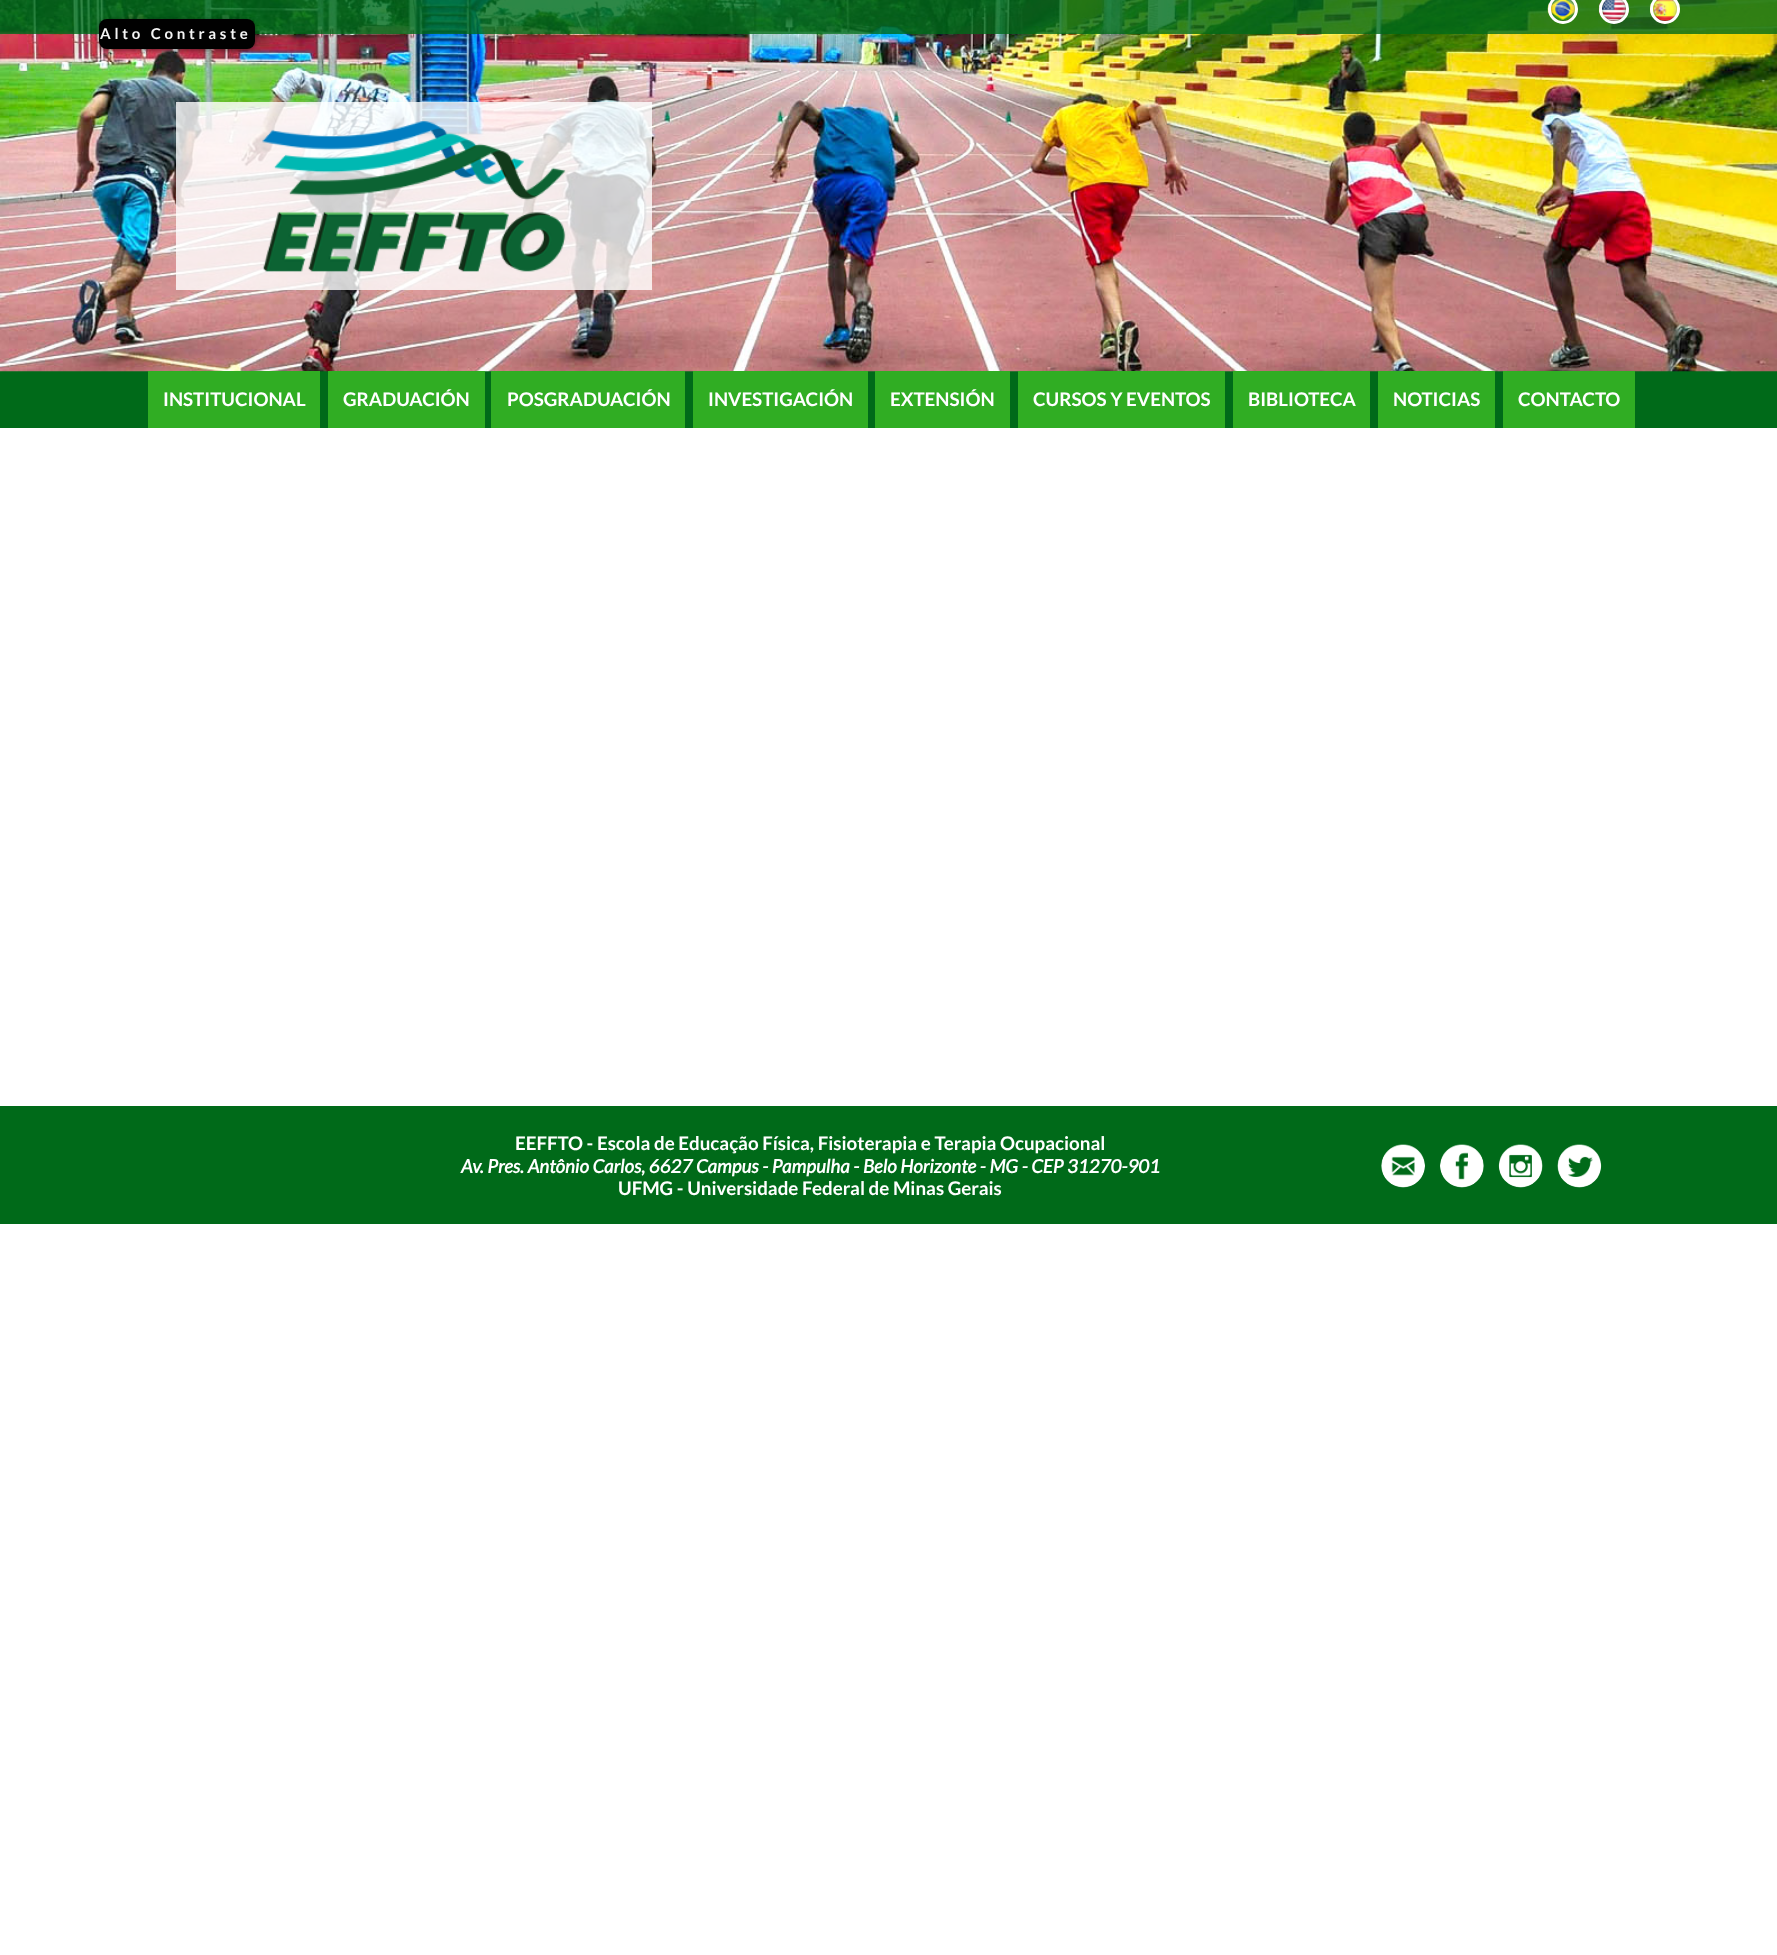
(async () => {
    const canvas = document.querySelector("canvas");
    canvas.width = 1777;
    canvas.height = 1955;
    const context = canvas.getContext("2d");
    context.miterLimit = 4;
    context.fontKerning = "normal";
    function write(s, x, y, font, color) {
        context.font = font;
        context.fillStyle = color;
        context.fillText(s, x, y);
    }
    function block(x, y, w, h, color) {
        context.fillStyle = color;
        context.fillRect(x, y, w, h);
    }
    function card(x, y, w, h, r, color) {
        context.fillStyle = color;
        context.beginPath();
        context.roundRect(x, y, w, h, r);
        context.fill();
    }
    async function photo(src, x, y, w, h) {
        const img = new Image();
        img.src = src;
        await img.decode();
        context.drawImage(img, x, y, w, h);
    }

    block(0, 0, 1777, 1955, "rgb(255, 255, 255)");
    block(0, 371, 1777, 57, "rgb(0, 106, 25)");
    await photo("media/1.png", 0, 0, 1777, 372);
    block(0, 0, 1777, 34, "rgba(0, 106, 25, 0.8)");
    await photo("media/2.png", 1547, 0, 31, 24);
    context.beginPath();
    context.arc(1563, 9, 13.5, 0, Math.PI * 2);
    context.strokeStyle = "rgb(255, 255, 255)";
    context.lineWidth = 3;
    context.stroke();
    await photo("media/3.png", 1598, 0, 31, 24);
    context.beginPath();
    context.arc(1614, 9, 13.5, 0, Math.PI * 2);
    context.stroke();
    await photo("media/4.png", 1650, 0, 30, 24);
    context.beginPath();
    context.arc(1665, 9, 13.5, 0, Math.PI * 2);
    context.stroke();
    context.fillStyle = "rgba(0, 0, 0, 0.5)";
    context.filter = "blur(2.5px)";
    context.beginPath();
    context.roundRect(99, 20, 156, 30, 8);
    context.fill();
    context.filter = "none";
    card(99, 19, 156, 30, 8, "rgb(1, 1, 1)");
    context.letterSpacing = "3.75px";
    write("Alto Contraste", 100, 39, "bold 15px Lato", "rgb(244, 244, 244)");
    block(176, 102, 476, 188, "rgba(255, 255, 255, 0.8)");
    await photo("media/5.png", 262, 121, 304, 151);
    block(148, 371, 172, 57, "rgb(48, 173, 35)");
    context.letterSpacing = "0px";
    write("INSTITUCIONAL", 163, 406, "bold 18.75px Lato", "rgb(255, 255, 255)");
    block(328, 371, 157, 57, "rgb(48, 173, 35)");
    write("GRADUACIÓN", 343, 406, "bold 18.75px Lato", "rgb(255, 255, 255)");
    block(491, 371, 194, 57, "rgb(48, 173, 35)");
    write("POSGRADUACIÓN", 507, 406, "bold 18.75px Lato", "rgb(255, 255, 255)");
    block(693, 371, 175, 57, "rgb(48, 173, 35)");
    write("INVESTIGACIÓN", 708, 406, "bold 18.75px Lato", "rgb(255, 255, 255)");
    block(875, 371, 135, 57, "rgb(48, 173, 35)");
    write("EXTENSIÓN", 890, 406, "bold 18.75px Lato", "rgb(255, 255, 255)");
    block(1018, 371, 207, 57, "rgb(48, 173, 35)");
    write("CURSOS Y EVENTOS", 1033, 406, "bold 18.75px Lato", "rgb(255, 255, 255)");
    block(1233, 371, 137, 57, "rgb(48, 173, 35)");
    write("BIBLIOTECA", 1248, 406, "bold 18.75px Lato", "rgb(255, 255, 255)");
    block(1378, 371, 117, 57, "rgb(48, 173, 35)");
    write("NOTICIAS", 1393, 406, "bold 18.75px Lato", "rgb(255, 255, 255)");
    block(1503, 371, 132, 57, "rgb(48, 173, 35)");
    write("CONTACTO", 1518, 406, "bold 18.75px Lato", "rgb(255, 255, 255)");
    block(0, 1106, 1777, 118, "rgb(0, 106, 25)");
    write("EEFFTO - Escola de Educação Física, Fisioterapia e Terapia Ocupacional", 515, 1150, "bold 18.75px Lato", "rgb(255, 255, 255)");
    write("Av. Pres. Antônio Carlos, 6627 Campus - Pampulha - Belo Horizonte - MG - CEP 31270-901", 461, 1173, "italic bold 18.75px Lato", "rgb(255, 255, 255)");
    write("UFMG - Universidade Federal de Minas Gerais", 618, 1195, "bold 18.75px Lato", "rgb(255, 255, 255)");
    await photo("media/6.png", 1381, 1144, 44, 44);
    await photo("media/7.png", 1440, 1144, 44, 44);
    await photo("media/8.png", 1498, 1144, 45, 44);
    await photo("media/9.png", 1557, 1144, 45, 44);
})();
